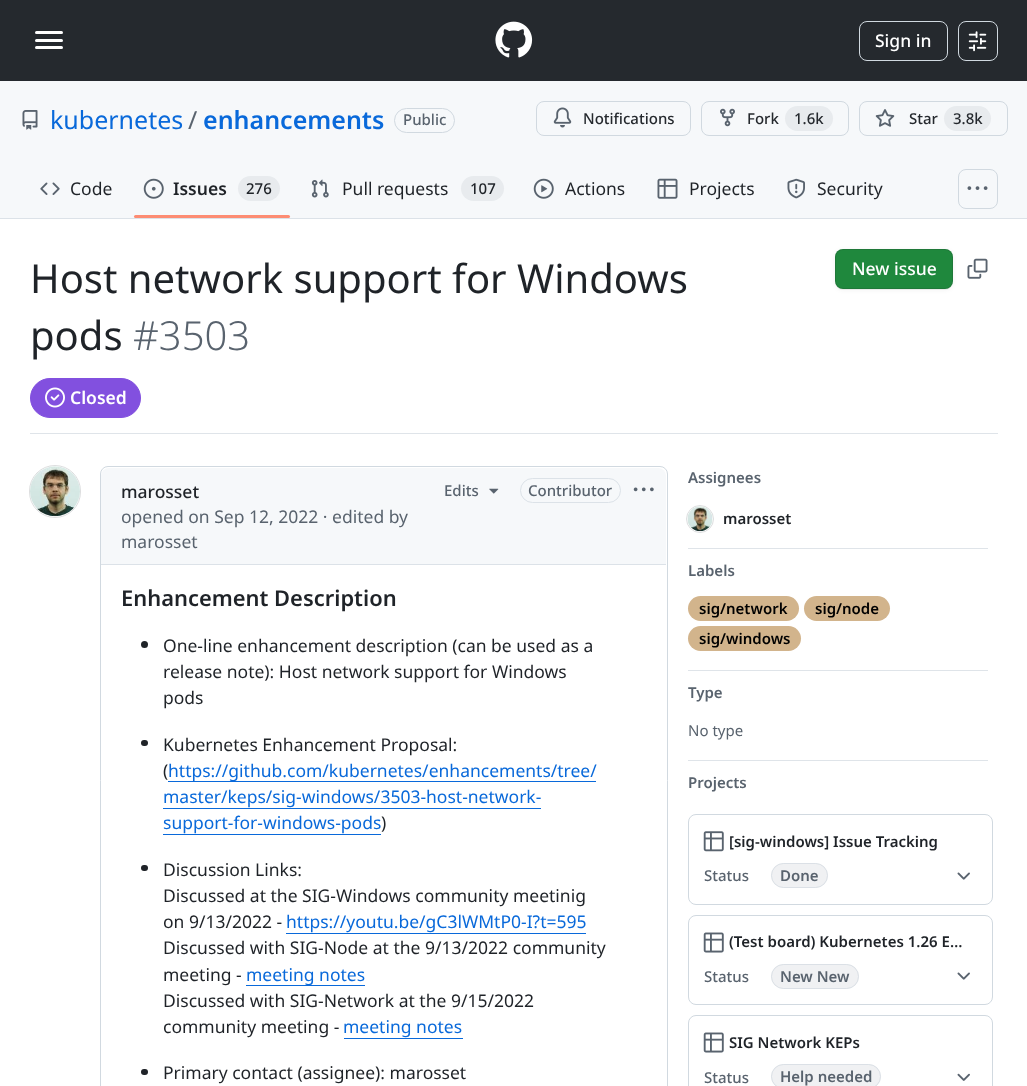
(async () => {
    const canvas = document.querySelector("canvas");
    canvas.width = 1027;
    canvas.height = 1086;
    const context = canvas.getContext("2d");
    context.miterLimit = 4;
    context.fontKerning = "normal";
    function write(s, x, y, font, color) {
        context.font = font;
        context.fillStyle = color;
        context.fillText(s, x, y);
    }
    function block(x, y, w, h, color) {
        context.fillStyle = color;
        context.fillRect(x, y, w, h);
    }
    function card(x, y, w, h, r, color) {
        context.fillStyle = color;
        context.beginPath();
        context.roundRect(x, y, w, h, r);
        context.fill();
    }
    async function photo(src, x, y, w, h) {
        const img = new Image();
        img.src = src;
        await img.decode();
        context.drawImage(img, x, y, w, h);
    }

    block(0, 0, 1027, 1086, "rgb(255, 255, 255)");
    block(0, 0, 1027, 81, "rgb(37, 41, 46)");
    card(35, 31, 28, 3, 1.5, "rgb(255, 255, 255)");
    card(35, 39, 28, 3, 1.5, "rgb(255, 255, 255)");
    card(35, 46, 28, 3, 1.5, "rgb(255, 255, 255)");
    await photo("media/1.png", 495, 21, 38, 37);
    context.beginPath();
    context.roundRect(859.5, 21.5, 88, 39, 7.5);
    context.strokeStyle = "rgb(209, 217, 224)";
    context.stroke();
    write("Sign in", 875, 47, "500 17.5px Noto Sans", "rgb(255, 255, 255)");
    context.beginPath();
    context.roundRect(958.5, 21.5, 39, 39, 7.5);
    context.stroke();
    await photo("media/2.png", 968, 31, 19, 21);
    block(0, 81, 1027, 137, "rgb(246, 248, 250)");
    await photo("media/3.png", 22, 110, 16, 20);
    write("kubernetes", 50, 129, "25px Noto Sans", "rgb(9, 105, 218)");
    write("/", 188, 129, "25px Noto Sans", "rgb(89, 99, 110)");
    write("enhancements", 203, 129, "600 25px Noto Sans", "rgb(9, 105, 218)");
    context.beginPath();
    context.roundRect(394.5, 108.5, 60, 24, 12);
    context.stroke();
    write("Public", 403, 125, "500 15px Noto Sans", "rgb(89, 99, 110)");
    context.beginPath();
    context.roundRect(536.5, 101.5, 154, 34, 7.5);
    context.stroke();
    await photo("media/4.png", 553, 107, 19, 21);
    write("Notifications", 583, 124, "500 15px Noto Sans", "rgb(37, 41, 46)");
    context.beginPath();
    context.roundRect(701.5, 101.5, 147, 34, 7.5);
    context.stroke();
    await photo("media/5.png", 720, 108, 15, 19);
    write("Fork", 747, 124, "500 15px Noto Sans", "rgb(37, 41, 46)");
    card(785, 106, 48, 25, 12.5, "rgb(232, 235, 238)");
    write("1.6k", 794, 124, "500 15px Noto Sans", "rgb(37, 41, 46)");
    context.beginPath();
    context.roundRect(859.5, 101.5, 148, 34, 7.5);
    context.stroke();
    await photo("media/6.png", 875, 109, 20, 18);
    write("Star", 909, 124, "500 15px Noto Sans", "rgb(37, 41, 46)");
    card(944, 106, 47, 25, 12.5, "rgb(232, 235, 238)");
    write("3.8k", 953, 124, "500 15px Noto Sans", "rgb(37, 41, 46)");
    block(0, 218, 1027, 1, "rgb(220, 226, 232)");
    await photo("media/7.png", 40, 182, 20, 13);
    write("Code", 70, 195, "17.5px Noto Sans", "rgb(31, 35, 40)");
    await photo("media/8.png", 143, 178, 21, 21);
    write("Issues", 173, 195, "600 17.5px Noto Sans", "rgb(31, 35, 40)");
    card(238, 176, 42, 25, 12.5, "rgb(232, 235, 238)");
    write("276", 246, 194, "500 15px Noto Sans", "rgb(31, 35, 40)");
    card(134, 215, 156, 3, 1.5, "rgb(253, 140, 115)");
    await photo("media/9.png", 311, 179, 18, 19);
    write("Pull requests", 342, 195, "17.5px Noto Sans", "rgb(31, 35, 40)");
    card(461, 176, 43, 25, 12.5, "rgb(232, 235, 238)");
    write("107", 470, 194, "500 15px Noto Sans", "rgb(31, 35, 40)");
    await photo("media/10.png", 533, 178, 21, 21);
    write("Actions", 565, 195, "17.5px Noto Sans", "rgb(31, 35, 40)");
    await photo("media/11.png", 657, 178, 21, 21);
    write("Projects", 689, 195, "17.5px Noto Sans", "rgb(31, 35, 40)");
    await photo("media/12.png", 787, 178, 18, 21);
    write("Security", 817, 195, "17.5px Noto Sans", "rgb(31, 35, 40)");
    context.beginPath();
    context.roundRect(958.5, 169.5, 39, 39, 7.5);
    context.stroke();
    await photo("media/13.png", 967, 186, 21, 4);
    write("Host network support for Windows", 30, 293, "40px Noto Sans", "rgb(31, 35, 40)");
    write("pods", 30, 350, "40px Noto Sans", "rgb(31, 35, 40)");
    write("#3503", 133, 350, "300 40px Noto Sans", "rgb(89, 99, 110)");
    context.fillStyle = "rgba(31, 35, 40, 0.06)";
    context.filter = "blur(2px)";
    context.beginPath();
    context.roundRect(835, 250, 118, 40, 8);
    context.fill();
    context.filter = "none";
    context.filter = "blur(0.5px)";
    context.beginPath();
    context.roundRect(835, 250, 118, 40, 8);
    context.fill();
    context.filter = "none";
    card(835, 249, 118, 40, 8, "rgb(31, 136, 61)");
    context.beginPath();
    context.roundRect(835.5, 249.5, 117, 39, 7.5);
    context.strokeStyle = "rgba(31, 35, 40, 0.15)";
    context.stroke();
    write("New issue", 852, 275, "500 17.5px Noto Sans", "rgb(255, 255, 255)");
    await photo("media/14.png", 967, 258, 21, 21);
    block(30, 433, 968, 1, "rgb(223, 228, 233)");
    context.fillStyle = "rgb(130, 80, 223)";
    context.beginPath();
    context.roundRect(30.5, 378.5, 110, 39, 19.5);
    context.fill();
    context.strokeStyle = "rgb(130, 80, 223)";
    context.stroke();
    await photo("media/15.png", 45, 387, 20, 21);
    write("Closed", 70, 404, "600 17.5px Noto Sans", "rgb(255, 255, 255)");
    context.beginPath();
    context.roundRect(29.5, 465.5, 51, 52, 25.5);
    context.strokeStyle = "rgb(221, 222, 223)";
    context.stroke();
    await photo("media/16.png", 30, 466, 50, 51);
    context.beginPath();
    context.roundRect(100.5, 466.5, 567, 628, 7.5);
    context.strokeStyle = "rgb(209, 217, 224)";
    context.stroke();
    context.fillStyle = "rgb(246, 248, 250)";
    context.beginPath();
    context.roundRect(101, 468, 565, 97, [8, 8, 0, 0]);
    context.fill();
    block(101, 564, 565, 1, "rgb(220, 226, 232)");
    write("marosset", 121, 498, "500 17.5px Noto Sans", "rgb(31, 35, 40)");
    write("opened on Sep 12, 2022 · edited by", 121, 523, "17.5px Noto Sans", "rgb(89, 99, 110)");
    write("marosset", 121, 548, "17.5px Noto Sans", "rgb(89, 99, 110)");
    write("Edits", 444, 496, "500 15px Noto Sans", "rgb(89, 99, 110)");
    await photo("media/17.png", 489, 488, 10, 6);
    context.beginPath();
    context.roundRect(520.5, 478.5, 100, 24, 12);
    context.strokeStyle = "rgb(220, 226, 232)";
    context.stroke();
    write("Contributor", 528, 496, "500 15px Noto Sans", "rgb(89, 99, 110)");
    await photo("media/18.png", 633, 487, 21, 5);
    write("Enhancement Description", 121, 606, "600 21.9px Noto Sans", "rgb(31, 35, 40)");
    context.beginPath();
    context.arc(144.5, 644.5, 3.5, 0, Math.PI * 2);
    context.fill();
    write("One-line enhancement description (can be used as a", 163, 652, "17.5px Noto Sans", "rgb(31, 35, 40)");
    write("release note): Host network support for Windows", 163, 678, "17.5px Noto Sans", "rgb(31, 35, 40)");
    write("pods", 163, 704, "17.5px Noto Sans", "rgb(31, 35, 40)");
    card(141, 740, 7, 6, 3, "rgb(31, 35, 40)");
    write("Kubernetes Enhancement Proposal:", 163, 751, "17.5px Noto Sans", "rgb(31, 35, 40)");
    write("(", 163, 777, "17.5px Noto Sans", "rgb(31, 35, 40)");
    block(168, 781, 428, 1, "rgb(9, 105, 218)");
    write("https://github.com/kubernetes/enhancements/tree/", 168, 777, "17.5px Noto Sans", "rgb(9, 105, 218)");
    write("master/keps/sig-windows/3503-host-network-", 163, 803, "17.5px Noto Sans", "rgb(9, 105, 218)");
    block(163, 808, 378, 1, "rgb(9, 105, 218)");
    write("support-for-windows-pods", 163, 829, "17.5px Noto Sans", "rgb(9, 105, 218)");
    block(163, 834, 218, 1, "rgb(9, 105, 218)");
    write(")", 381, 829, "17.5px Noto Sans", "rgb(31, 35, 40)");
    card(141, 865, 7, 6, 3, "rgb(31, 35, 40)");
    write("Discussion Links:", 163, 876, "17.5px Noto Sans", "rgb(31, 35, 40)");
    write("Discussed at the SIG-Windows community meetinig", 163, 902, "17.5px Noto Sans", "rgb(31, 35, 40)");
    write("on 9/13/2022 -", 163, 928, "17.5px Noto Sans", "rgb(31, 35, 40)");
    write("https://youtu.be/gC3lWMtP0-I?t=595", 286, 928, "17.5px Noto Sans", "rgb(9, 105, 218)");
    block(286, 933, 300, 1, "rgb(9, 105, 218)");
    write("Discussed with SIG-Node at the 9/13/2022 community", 163, 954, "17.5px Noto Sans", "rgb(31, 35, 40)");
    write("meeting -", 163, 981, "17.5px Noto Sans", "rgb(31, 35, 40)");
    block(246, 985, 119, 1, "rgb(9, 105, 218)");
    write("meeting notes", 246, 981, "17.5px Noto Sans", "rgb(9, 105, 218)");
    write("Discussed with SIG-Network at the 9/15/2022", 163, 1007, "17.5px Noto Sans", "rgb(31, 35, 40)");
    write("community meeting -", 163, 1033, "17.5px Noto Sans", "rgb(31, 35, 40)");
    write("meeting notes", 343, 1033, "17.5px Noto Sans", "rgb(9, 105, 218)");
    block(344, 1038, 119, 1, "rgb(9, 105, 218)");
    card(141, 1069, 7, 6, 3, "rgb(31, 35, 40)");
    write("Primary contact (assignee): marosset", 163, 1079, "17.5px Noto Sans", "rgb(31, 35, 40)");
    write("Assignees", 688, 483, "600 15px Noto Sans", "rgb(89, 99, 110)");
    context.beginPath();
    context.arc(700, 519, 13.5, 0, Math.PI * 2);
    context.strokeStyle = "rgb(221, 222, 223)";
    context.stroke();
    await photo("media/19.png", 687, 506, 26, 26);
    write("marosset", 723, 524, "600 15px Noto Sans", "rgb(31, 35, 40)");
    block(688, 548, 300, 1, "rgb(223, 228, 233)");
    write("Labels", 688, 576, "600 15px Noto Sans", "rgb(89, 99, 110)");
    card(688, 596, 111, 25, 12.5, "rgb(210, 180, 140)");
    write("sig/network", 699, 614, "600 15px Noto Sans", "rgb(0, 0, 0)");
    card(804, 596, 86, 25, 12.5, "rgb(210, 180, 140)");
    write("sig/node", 815, 614, "600 15px Noto Sans", "rgb(0, 0, 0)");
    card(688, 626, 113, 25, 12.5, "rgb(210, 180, 140)");
    write("sig/windows", 699, 644, "600 15px Noto Sans", "rgb(0, 0, 0)");
    block(688, 670, 300, 1, "rgb(223, 228, 233)");
    write("Type", 688, 698, "600 15px Noto Sans", "rgb(89, 99, 110)");
    write("No type", 688, 736, "15px Noto Sans", "rgb(89, 99, 110)");
    block(688, 760, 300, 1, "rgb(223, 228, 233)");
    write("Projects", 688, 788, "600 15px Noto Sans", "rgb(89, 99, 110)");
    context.beginPath();
    context.roundRect(688.5, 814.5, 304, 90, 7.5);
    context.strokeStyle = "rgb(209, 217, 224)";
    context.stroke();
    await photo("media/20.png", 703, 831, 21, 21);
    write("[sig-windows] Issue Tracking", 729, 847, "600 15px Noto Sans", "rgb(31, 35, 40)");
    write("Status", 704, 881, "500 15px Noto Sans", "rgb(89, 99, 110)");
    card(771, 863, 57, 25, 12.5, "rgb(240, 241, 243)");
    context.beginPath();
    context.roundRect(771.5, 863.5, 56, 24, 12);
    context.strokeStyle = "rgba(209, 217, 224, 0.7)";
    context.stroke();
    write("Done", 780, 881, "600 15px Noto Sans", "rgb(89, 99, 110)");
    await photo("media/21.png", 957, 872, 13, 8);
    context.beginPath();
    context.roundRect(688.5, 915.5, 304, 89, 7.5);
    context.strokeStyle = "rgb(209, 217, 224)";
    context.stroke();
    await photo("media/22.png", 703, 932, 21, 21);
    write("(Test board) Kubernetes 1.26 E…", 729, 947, "600 15px Noto Sans", "rgb(31, 35, 40)");
    write("Status", 704, 982, "500 15px Noto Sans", "rgb(89, 99, 110)");
    card(771, 964, 88, 25, 12.5, "rgb(240, 241, 243)");
    context.beginPath();
    context.roundRect(771.5, 964.5, 87, 24, 12);
    context.strokeStyle = "rgba(209, 217, 224, 0.7)";
    context.stroke();
    write("New New", 780, 982, "600 15px Noto Sans", "rgb(89, 99, 110)");
    await photo("media/21.png", 957, 972, 13, 8);
    context.beginPath();
    context.roundRect(688.5, 1015.5, 304, 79, 7.5);
    context.strokeStyle = "rgb(209, 217, 224)";
    context.stroke();
    await photo("media/22.png", 703, 1032, 21, 21);
    write("SIG Network KEPs", 729, 1048, "600 15px Noto Sans", "rgb(31, 35, 40)");
    write("Status", 704, 1083, "500 15px Noto Sans", "rgb(89, 99, 110)");
    card(771, 1064, 110, 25, 12.5, "rgb(240, 241, 243)");
    context.beginPath();
    context.roundRect(771.5, 1064.5, 109, 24, 12);
    context.strokeStyle = "rgba(209, 217, 224, 0.7)";
    context.stroke();
    write("Help needed", 780, 1082, "600 15px Noto Sans", "rgb(89, 99, 110)");
    await photo("media/23.png", 957, 1073, 13, 8);
})();
